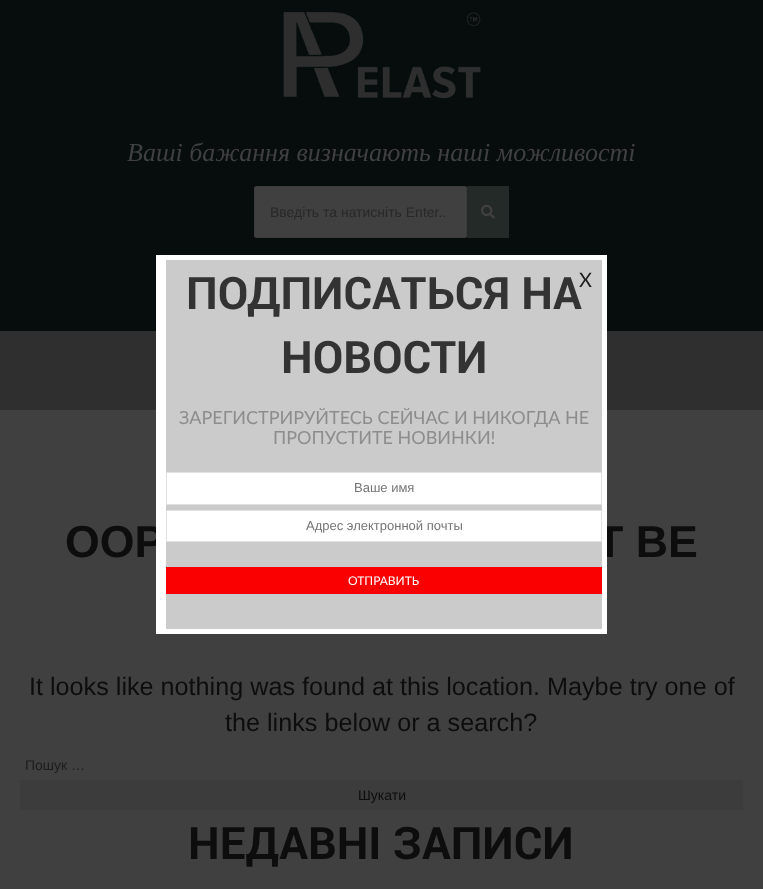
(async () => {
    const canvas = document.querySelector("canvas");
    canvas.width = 763;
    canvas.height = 889;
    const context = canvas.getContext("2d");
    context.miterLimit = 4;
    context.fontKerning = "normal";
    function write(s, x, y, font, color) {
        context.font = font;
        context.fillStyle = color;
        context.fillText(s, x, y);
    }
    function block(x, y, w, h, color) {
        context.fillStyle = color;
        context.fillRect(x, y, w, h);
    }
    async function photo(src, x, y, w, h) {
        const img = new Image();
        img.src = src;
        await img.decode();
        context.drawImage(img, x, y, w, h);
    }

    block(0, 0, 763, 889, "rgb(64, 64, 64)");
    block(0, 0, 763, 331, "rgb(6, 13, 12)");
    await photo("media/1.png", 283, 12, 198, 87);
    write("Ваші бажання визначають наші можливості", 127, 161, "italic 26px Liberation Serif", "rgb(64, 64, 64)");
    context.beginPath();
    context.roundRect(254.5, 186.5, 212, 51, 1.5);
    context.fill();
    context.strokeStyle = "rgb(58, 58, 58)";
    context.stroke();
    write("Введіть та натисніть Enter..", 270, 217, "14px Liberation Sans", "rgb(40, 40, 40)");
    block(467, 186, 42, 52, "rgb(36, 42, 39)");
    await photo("media/2.png", 481, 204, 14, 15);
    block(0, 331, 763, 79, "rgb(47, 47, 47)");
    write("OOP", 65, 557, "bold 44.75px Liberation Sans", "rgb(13, 13, 13)");
    write("T BE", 596, 557, "bold 44.75px Liberation Sans", "rgb(13, 13, 13)");
    write("It looks like nothing was found at this location. Maybe try one of", 29, 695, "25.2px Liberation Sans", "rgb(13, 13, 13)");
    write("the links below or a search?", 225, 731, "25.2px Liberation Sans", "rgb(13, 13, 13)");
    write("Пошук …", 25, 770, "14px Liberation Sans", "rgb(29, 29, 29)");
    block(20, 780, 723, 30, "rgb(60, 60, 60)");
    write("Шукати", 358, 800, "14px Liberation Sans", "rgb(13, 13, 13)");
    write("НЕДАВНІ ЗАПИСИ", 188, 859, "bold 44.75px Roboto", "rgb(13, 13, 13)");
    block(156, 255, 5, 379, "rgb(255, 255, 255)");
    context.fillStyle = "rgb(203, 203, 203)";
    context.beginPath();
    context.rect(163.5, 257.5, 441, 374);
    context.fill();
    context.strokeStyle = "rgb(255, 255, 255)";
    context.lineWidth = 5;
    context.stroke();
    write("ПОДПИСАТЬСЯ НА", 186, 309, "bold 44.75px Roboto", "rgb(51, 51, 51)");
    write("НОВОСТИ", 281, 373, "bold 44.75px Roboto", "rgb(51, 51, 51)");
    write("X", 579, 287, "20px Lato", "rgb(29, 29, 29)");
    context.save();
    context.beginPath();
    context.rect(166, 408, 436, 39);
    context.clip();
    write("ЗАРЕГИСТРИРУЙТЕСЬ СЕЙЧАС И НИКОГДА НЕ", 179, 424, "18px Lato", "rgb(141, 141, 141)");
    context.restore();
    write("ПРОПУСТИТЕ НОВИНКИ!", 273, 444, "18px Lato", "rgb(141, 141, 141)");
    context.fillStyle = "rgb(255, 255, 255)";
    context.beginPath();
    context.rect(166.5, 472.5, 435, 32);
    context.fill();
    context.strokeStyle = "rgb(225, 225, 225)";
    context.lineWidth = 1;
    context.stroke();
    write("Ваше имя", 354, 492, "13px Liberation Sans", "rgb(117, 117, 117)");
    context.fillStyle = "rgb(255, 255, 255)";
    context.beginPath();
    context.rect(166.5, 510.5, 435, 31);
    context.fill();
    context.stroke();
    write("Адрес электронной почты", 306, 530, "13px Liberation Sans", "rgb(117, 117, 117)");
    block(166, 567, 436, 27, "rgb(250, 0, 0)");
    write("ОТПРАВИТЬ", 348, 585, "12px Lato", "rgb(255, 255, 255)");
})();
